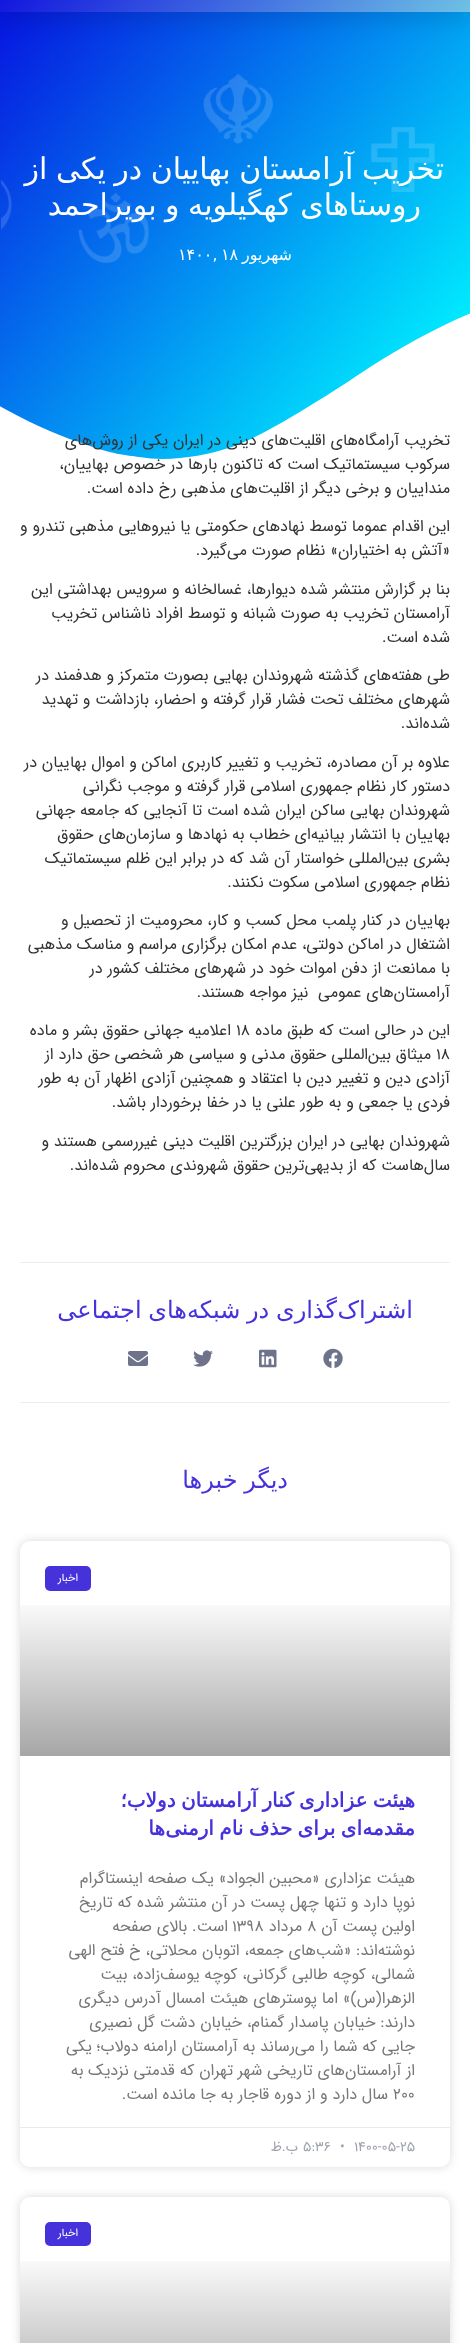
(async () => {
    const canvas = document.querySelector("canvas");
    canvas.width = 470;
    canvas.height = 2343;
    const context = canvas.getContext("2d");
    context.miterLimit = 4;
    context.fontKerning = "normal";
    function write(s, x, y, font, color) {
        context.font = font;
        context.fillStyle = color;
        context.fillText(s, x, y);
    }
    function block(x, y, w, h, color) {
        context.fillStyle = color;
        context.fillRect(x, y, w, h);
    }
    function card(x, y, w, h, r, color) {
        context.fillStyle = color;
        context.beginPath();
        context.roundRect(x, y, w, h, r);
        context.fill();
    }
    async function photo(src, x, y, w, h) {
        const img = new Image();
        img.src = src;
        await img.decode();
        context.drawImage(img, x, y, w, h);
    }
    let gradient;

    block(0, 0, 470, 2343, "rgb(255, 255, 255)");
    gradient = context.createLinearGradient(-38, -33, 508, 424);
    gradient.addColorStop(0, "rgb(7, 0, 221)");
    gradient.addColorStop(0.89, "rgb(0, 242, 255)");
    context.fillStyle = gradient;
    context.fillRect(0, 12, 470, 447);
    context.fillStyle = "rgba(0, 0, 0, 0.1)";
    context.filter = "blur(10px)";
    context.beginPath();
    context.rect(0, -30, 470, 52);
    context.fill();
    context.filter = "none";
    gradient = context.createLinearGradient(75, -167, 395, 101);
    gradient.addColorStop(0, "rgb(7, 0, 221)");
    gradient.addColorStop(1, "rgb(110, 193, 228)");
    context.fillStyle = gradient;
    context.fillRect(0, 0, 470, 12);
    await photo("media/1.png", 1, 74, 434, 189);
    context.wordSpacing = "-1px";
    context.direction = "rtl";
    write("تخریب آرامستان بهاییان در یکی از", 444, 179, "30px DejaVu Sans", "rgb(255, 255, 255)");
    write("روستاهای کهگیلویه و بویراحمد", 421, 215, "30px DejaVu Sans", "rgb(255, 255, 255)");
    context.wordSpacing = "0px";
    write("شهریور", 292, 260, "16px DejaVu Sans", "rgb(255, 255, 255)");
    context.direction = "ltr";
    write("۱۸", 221, 260, "16px DejaVu Sans", "rgb(255, 255, 255)");
    write("۱۴۰۰,", 178, 260, "16px DejaVu Sans", "rgb(255, 255, 255)");
    context.beginPath();
    context.moveTo(139, 457);
    context.bezierCurveTo(167, 462, 202, 457, 232, 447);
    context.bezierCurveTo(261, 437, 319, 401, 355, 377);
    context.bezierCurveTo(447, 315, 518, 291, 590, 280);
    context.bezierCurveTo(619, 276, 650, 274, 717, 285);
    context.bezierCurveTo(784, 297, 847, 335, 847, 335);
    context.lineTo(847, 470);
    context.lineTo(-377, 470);
    context.lineTo(-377, 411);
    context.bezierCurveTo(-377, 411, -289, 347, -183, 351);
    context.bezierCurveTo(-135, 353, -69, 365, -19, 395);
    context.bezierCurveTo(7, 411, 45, 431, 79, 442);
    context.bezierCurveTo(112, 455, 127, 455, 139, 457);
    context.closePath();
    context.fill();
    context.direction = "rtl";
    write("تخریب آرامگاه‌های اقلیت‌های دینی در ایران یکی از روش‌های", 450, 445, "16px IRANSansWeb", "rgb(51, 51, 51)");
    write("سرکوب سیستماتیک است که تاکنون بارها در خصوص بهاییان،", 450, 469, "16px IRANSansWeb", "rgb(51, 51, 51)");
    write("منداییان و برخی دیگر از اقلیت‌های مذهبی رخ داده است.", 450, 493, "16px IRANSansWeb", "rgb(51, 51, 51)");
    write("این اقدام عموما توسط نهادهای حکومتی یا نیروهایی مذهبی تندرو و", 450, 531, "16px IRANSansWeb", "rgb(51, 51, 51)");
    write("«آتش به اختیاران» نظام صورت می‌گیرد.", 450, 555, "16px IRANSansWeb", "rgb(51, 51, 51)");
    write("بنا بر گزارش منتشر شده دیوارها، غسالخانه و سرویس بهداشتی این", 450, 594, "16px IRANSansWeb", "rgb(51, 51, 51)");
    write("آرامستان تخریب به صورت شبانه و توسط افراد ناشناس تخریب", 450, 618, "16px IRANSansWeb", "rgb(51, 51, 51)");
    write("شده است.", 450, 642, "16px IRANSansWeb", "rgb(51, 51, 51)");
    write("طی هفته‌های گذشته شهروندان بهایی بصورت متمرکز و هدفمند در", 450, 680, "16px IRANSansWeb", "rgb(51, 51, 51)");
    write("شهرهای مختلف تحت فشار قرار گرفته و احضار، بازداشت و تهدید", 450, 704, "16px IRANSansWeb", "rgb(51, 51, 51)");
    write("شده‌اند.", 450, 728, "16px IRANSansWeb", "rgb(51, 51, 51)");
    write("علاوه بر آن مصادره، تخریب و تغییر کاربری اماکن و اموال بهاییان در", 450, 767, "16px IRANSansWeb", "rgb(51, 51, 51)");
    write("دستور کار نظام جمهوری اسلامی قرار گرفته و موجب نگرانی", 450, 791, "16px IRANSansWeb", "rgb(51, 51, 51)");
    write("شهروندان بهایی ساکن ایران شده است تا آنجایی که جامعه جهانی", 450, 815, "16px IRANSansWeb", "rgb(51, 51, 51)");
    write("بهاییان با انتشار بیانیه‌ای خطاب به نهادها و سازمان‌های حقوق", 450, 839, "16px IRANSansWeb", "rgb(51, 51, 51)");
    write("بشری بین‌المللی خواستار آن شد که در برابر این ظلم سیستماتیک", 450, 863, "16px IRANSansWeb", "rgb(51, 51, 51)");
    write("نظام جمهوری اسلامی سکوت نکنند.", 450, 887, "16px IRANSansWeb", "rgb(51, 51, 51)");
    write("بهاییان در کنار پلمب محل کسب و کار، محرومیت از تحصیل و", 450, 925, "16px IRANSansWeb", "rgb(51, 51, 51)");
    write("اشتغال در اماکن دولتی، عدم امکان برگزاری مراسم و مناسک مذهبی", 450, 949, "16px IRANSansWeb", "rgb(51, 51, 51)");
    write("با ممانعت از دفن اموات خود در شهرهای مختلف کشور در", 450, 973, "16px IRANSansWeb", "rgb(51, 51, 51)");
    write("آرامستان‌های عمومی  نیز مواجه هستند.", 450, 997, "16px IRANSansWeb", "rgb(51, 51, 51)");
    write("این در حالی است که طبق ماده", 450, 1035, "16px IRANSansWeb", "rgb(51, 51, 51)");
    context.direction = "ltr";
    write("۱۸", 236, 1035, "16px IRANSansWeb", "rgb(51, 51, 51)");
    context.direction = "rtl";
    write("اعلامیه جهانی حقوق بشر و ماده", 231, 1035, "16px IRANSansWeb", "rgb(51, 51, 51)");
    context.direction = "ltr";
    write("۱۸", 436, 1059, "16px IRANSansWeb", "rgb(51, 51, 51)");
    context.direction = "rtl";
    write("میثاق بین‌المللی حقوق مدنی و سیاسی هر شخصی حق دارد از", 431, 1059, "16px IRANSansWeb", "rgb(51, 51, 51)");
    write("آزادی دین و تغییر دین با اعتقاد و همچنین آزادی اظهار آن به طور", 450, 1083, "16px IRANSansWeb", "rgb(51, 51, 51)");
    write("فردی یا جمعی و به طور علنی یا در خفا برخوردار باشد.", 450, 1107, "16px IRANSansWeb", "rgb(51, 51, 51)");
    write("شهروندان بهایی در ایران بزرگترین اقلیت دینی غیررسمی هستند و", 450, 1146, "16px IRANSansWeb", "rgb(51, 51, 51)");
    write("سال‌هاست که از بدیهی‌ترین حقوق شهروندی محروم شده‌اند.", 450, 1170, "16px IRANSansWeb", "rgb(51, 51, 51)");
    block(20, 1262, 430, 1, "rgb(236, 237, 239)");
    block(20, 1402, 430, 1, "rgb(236, 237, 239)");
    write("اشتراک", 413, 1318, "24px DejaVu Sans", "rgb(70, 50, 218)");
    context.wordSpacing = "-1px";
    write("گذاری در شبکه", 337, 1318, "24px DejaVu Sans", "rgb(70, 50, 218)");
    write("های اجتماعی", 187, 1318, "24px DejaVu Sans", "rgb(70, 50, 218)");
    await photo("media/2.png", 323, 1348, 20, 20);
    await photo("media/3.png", 259, 1349, 18, 19);
    await photo("media/4.png", 193, 1350, 20, 17);
    await photo("media/5.png", 128, 1351, 20, 15);
    write("دیگر خبرها", 288, 1488, "24px DejaVu Sans", "rgb(70, 50, 218)");
    context.fillStyle = "rgba(0, 0, 0, 0.15)";
    context.filter = "blur(5px)";
    context.beginPath();
    context.roundRect(20, 1541, 430, 626, 10);
    context.fill();
    context.filter = "none";
    card(20, 1541, 430, 626, 10, "rgb(255, 255, 255)");
    card(45, 1566, 46, 25, 5, "rgb(70, 50, 218)");
    context.wordSpacing = "0px";
    write("اخبار", 78, 1581, "11px IRANSansWeb", "rgb(255, 255, 255)");
    gradient = context.createLinearGradient(235, 1756, 235, 1541);
    gradient.addColorStop(0, "rgba(0, 0, 0, 0.35)");
    gradient.addColorStop(0.75, "rgba(0, 0, 0, 0)");
    context.fillStyle = gradient;
    context.fillRect(20, 1605, 430, 151);
    context.wordSpacing = "-1px";
    write("هیئت عزاداری کنار آرامستان دولاب؛", 415, 1807, "bold 20px DejaVu Sans", "rgb(70, 50, 218)");
    context.wordSpacing = "0px";
    write("مقدمه", 415, 1835, "bold 20px DejaVu Sans", "rgb(70, 50, 218)");
    context.wordSpacing = "-1px";
    write("ای برای حذف نام ارمنی", 362, 1835, "bold 20px DejaVu Sans", "rgb(70, 50, 218)");
    context.wordSpacing = "0px";
    write("ها", 165, 1835, "bold 20px DejaVu Sans", "rgb(70, 50, 218)");
    write("هیئت عزاداری «محبین الجواد» یک صفحه اینستاگرام", 415, 1883, "16px IRANSansWeb", "rgb(119, 119, 119)");
    write("نوپا دارد و تنها چهل پست در آن منتشر شده که تاریخ", 415, 1907, "16px IRANSansWeb", "rgb(119, 119, 119)");
    write("اولین پست آن", 415, 1931, "16px IRANSansWeb", "rgb(119, 119, 119)");
    context.direction = "ltr";
    write("۸", 307, 1931, "16px IRANSansWeb", "rgb(119, 119, 119)");
    context.direction = "rtl";
    write("مرداد", 302, 1931, "16px IRANSansWeb", "rgb(119, 119, 119)");
    context.direction = "ltr";
    write("۱۳۹۸", 232, 1931, "16px IRANSansWeb", "rgb(119, 119, 119)");
    context.direction = "rtl";
    write("است. بالای صفحه", 228, 1931, "16px IRANSansWeb", "rgb(119, 119, 119)");
    write("نوشته‌اند: «شب‌های جمعه، اتوبان محلاتی، خ فتح الهی", 415, 1955, "16px IRANSansWeb", "rgb(119, 119, 119)");
    write("شمالی، کوچه طالبی گرکانی، کوچه یوسف‌زاده، بیت", 415, 1979, "16px IRANSansWeb", "rgb(119, 119, 119)");
    write("الزهرا(س)» اما پوسترهای هیئت امسال آدرس دیگری", 415, 2003, "16px IRANSansWeb", "rgb(119, 119, 119)");
    write("دارند: خیابان پاسدار گمنام، خیابان دشت گل نصیری", 415, 2027, "16px IRANSansWeb", "rgb(119, 119, 119)");
    write("جایی که شما را می‌رساند به آرامستان ارامنه دولاب؛ یکی", 415, 2051, "16px IRANSansWeb", "rgb(119, 119, 119)");
    write("از آرامستان‌های تاریخی شهر تهران که قدمتی نزدیک به", 415, 2075, "16px IRANSansWeb", "rgb(119, 119, 119)");
    context.direction = "ltr";
    write("۲۰۰", 393, 2099, "16px IRANSansWeb", "rgb(119, 119, 119)");
    context.direction = "rtl";
    write("سال دارد و از دوره قاجار به جا مانده است.", 388, 2099, "16px IRANSansWeb", "rgb(119, 119, 119)");
    block(20, 2127, 430, 1, "rgb(234, 234, 234)");
    context.direction = "ltr";
    write("۱۴۰۰-۰۵-۲۵", 354, 2151, "14px IRANSansWeb", "rgb(158, 162, 172)");
    write("•", 340, 2151, "14px IRANSansWeb", "rgb(158, 162, 172)");
    write("۵:۳۶", 303, 2151, "14px IRANSansWeb", "rgb(158, 162, 172)");
    context.direction = "rtl";
    write("ب.ظ", 298, 2151, "14px IRANSansWeb", "rgb(158, 162, 172)");
    context.fillStyle = "rgba(0, 0, 0, 0.15)";
    context.filter = "blur(5px)";
    context.beginPath();
    context.roundRect(20, 2197, 430, 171, 10);
    context.fill();
    context.filter = "none";
    card(20, 2197, 430, 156, 10, "rgb(255, 255, 255)");
    card(45, 2222, 46, 24, 5, "rgb(70, 50, 218)");
    write("اخبار", 78, 2236, "11px IRANSansWeb", "rgb(255, 255, 255)");
    gradient = context.createLinearGradient(235, 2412, 235, 2197);
    gradient.addColorStop(0, "rgba(0, 0, 0, 0.35)");
    gradient.addColorStop(0.75, "rgba(0, 0, 0, 0)");
    context.fillStyle = gradient;
    context.fillRect(20, 2261, 430, 82);
})();
